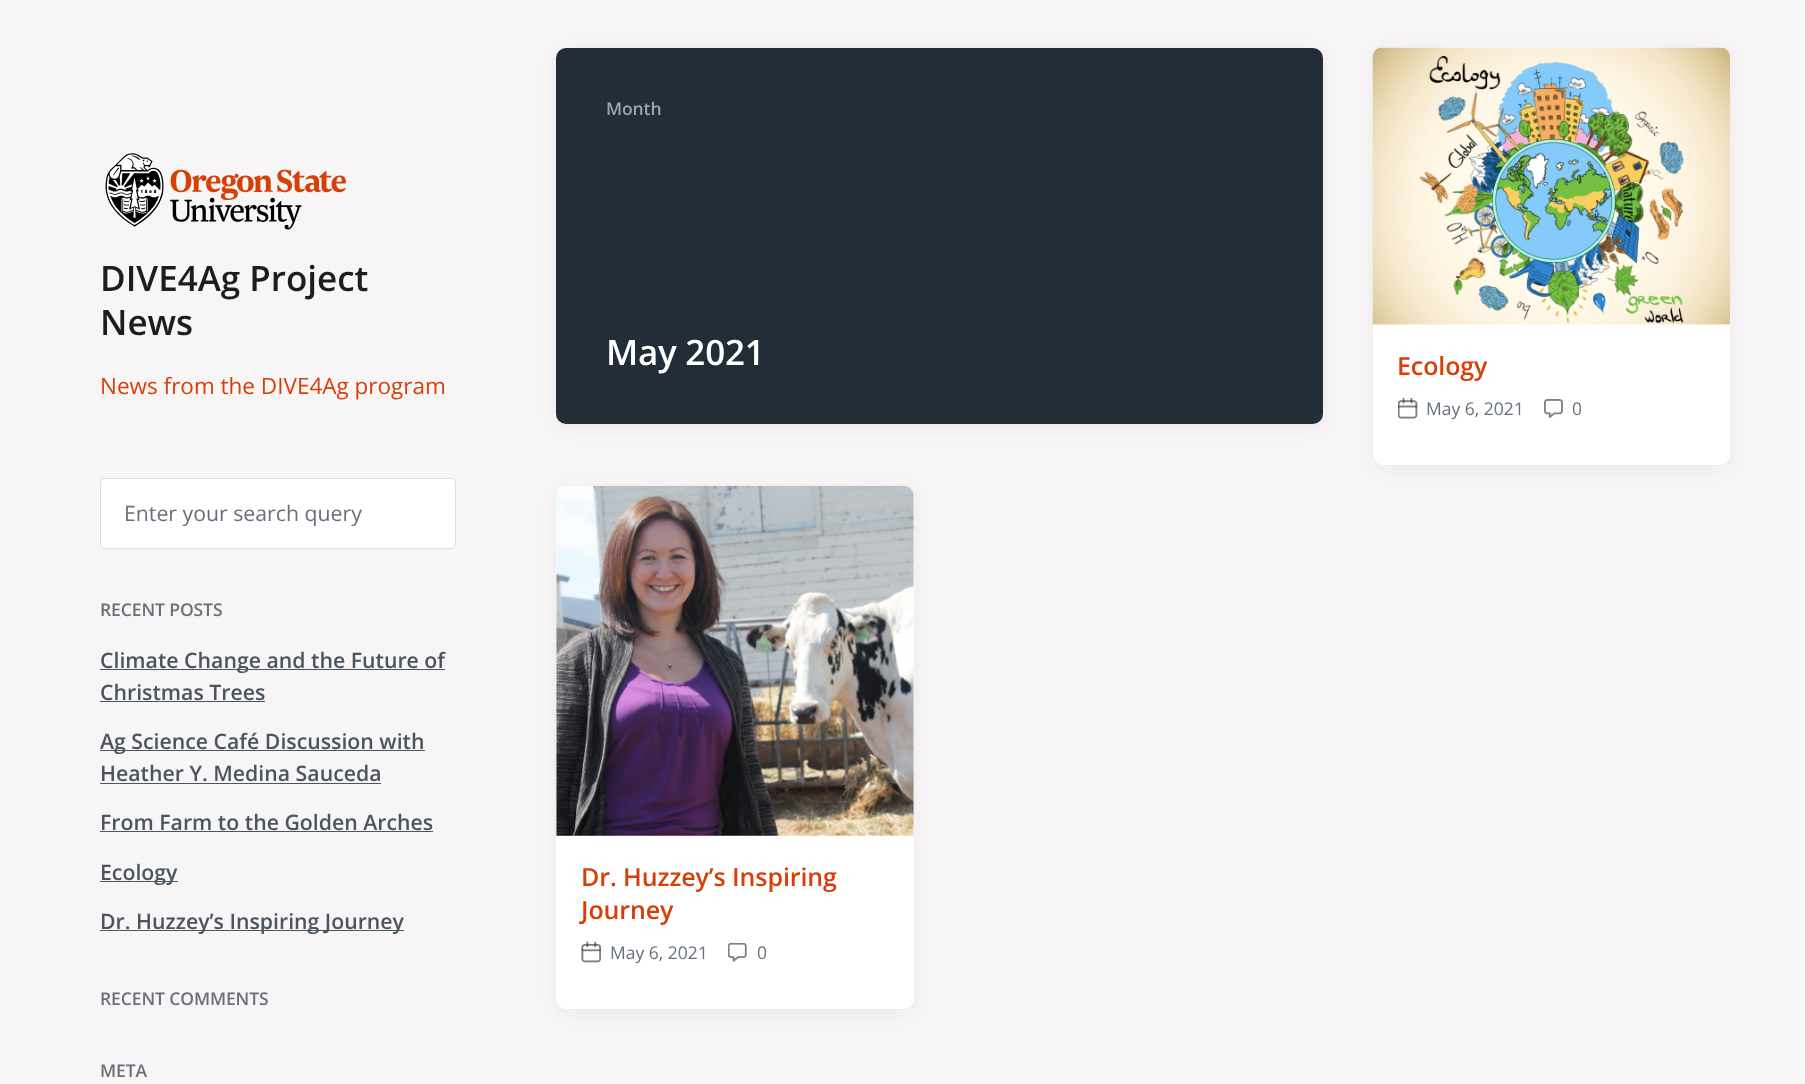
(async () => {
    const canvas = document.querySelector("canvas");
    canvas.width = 1805;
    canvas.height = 1084;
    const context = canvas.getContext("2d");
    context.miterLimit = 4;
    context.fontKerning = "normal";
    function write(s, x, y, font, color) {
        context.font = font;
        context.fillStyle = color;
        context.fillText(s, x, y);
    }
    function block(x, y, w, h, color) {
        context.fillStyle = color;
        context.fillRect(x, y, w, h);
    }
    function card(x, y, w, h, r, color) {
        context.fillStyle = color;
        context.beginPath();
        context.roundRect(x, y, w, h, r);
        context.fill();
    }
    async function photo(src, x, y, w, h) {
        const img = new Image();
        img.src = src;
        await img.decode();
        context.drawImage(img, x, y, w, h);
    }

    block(0, 0, 1805, 1084, "rgb(247, 245, 245)");
    await photo("media/1.png", 104, 152, 242, 78);
    write("DIVE4Ag Project", 100, 291, "600 35px Open Sans", "rgb(31, 29, 28)");
    write("News", 100, 335, "600 35px Open Sans", "rgb(31, 29, 28)");
    write("News from the DIVE4Ag program", 100, 394, "22.5px Open Sans", "rgb(215, 63, 9)");
    context.fillStyle = "rgb(255, 255, 255)";
    context.beginPath();
    context.roundRect(100.5, 478.5, 355, 70, 4.5);
    context.fill();
    context.strokeStyle = "rgb(220, 223, 226)";
    context.stroke();
    write("Enter your search query", 124, 521, "21.25px Open Sans", "rgb(104, 113, 123)");
    context.letterSpacing = "-0.1px";
    write("RECENT POSTS", 100, 616, "600 17.5px Open Sans", "rgb(104, 113, 123)");
    block(100, 669, 345, 1, "rgb(75, 85, 95)");
    context.letterSpacing = "0px";
    write("Climate Change and the Future of", 100, 668, "600 21.25px Open Sans", "rgb(75, 85, 95)");
    write("Christmas Trees", 100, 700, "600 21.25px Open Sans", "rgb(75, 85, 95)");
    block(100, 701, 165, 1, "rgb(75, 85, 95)");
    block(100, 750, 325, 1, "rgb(75, 85, 95)");
    write("Ag Science Café Discussion with", 100, 749, "600 21.25px Open Sans", "rgb(75, 85, 95)");
    write("Heather Y. Medina Sauceda", 100, 781, "600 21.25px Open Sans", "rgb(75, 85, 95)");
    block(100, 783, 281, 1, "rgb(75, 85, 95)");
    write("From Farm to the Golden Arches", 100, 830, "600 21.25px Open Sans", "rgb(75, 85, 95)");
    block(100, 831, 333, 1, "rgb(75, 85, 95)");
    block(100, 881, 78, 1, "rgb(75, 85, 95)");
    write("Ecology", 100, 880, "600 21.25px Open Sans", "rgb(75, 85, 95)");
    block(100, 930, 304, 1, "rgb(75, 85, 95)");
    write("Dr. Huzzey’s Inspiring Journey", 100, 929, "600 21.25px Open Sans", "rgb(75, 85, 95)");
    context.letterSpacing = "-0.1px";
    write("RECENT COMMENTS", 100, 1005, "600 17.5px Open Sans", "rgb(104, 113, 123)");
    write("META", 100, 1077, "600 17.5px Open Sans", "rgb(104, 113, 123)");
    context.fillStyle = "rgba(5, 10, 15, 0.05)";
    context.filter = "blur(7.5px)";
    context.beginPath();
    context.roundRect(556, 51, 767, 377, 10);
    context.fill();
    context.filter = "none";
    card(556, 48, 767, 376, 10, "rgb(35, 45, 55)");
    write("Month", 606, 115, "600 17.5px Open Sans", "rgb(155, 165, 175)");
    context.letterSpacing = "-0.25px";
    write("May 2021", 606, 365, "600 35px Open Sans", "rgb(255, 255, 255)");
    context.fillStyle = "rgba(5, 10, 15, 0.05)";
    context.filter = "blur(7.5px)";
    context.beginPath();
    context.roundRect(1373, 51, 357, 418, 10);
    context.fill();
    context.filter = "none";
    card(1373, 48, 357, 417, 10, "rgb(255, 255, 255)");
    await photo("media/2.png", 1372, 47, 358, 278);
    context.letterSpacing = "-0.1px";
    write("Ecology", 1397, 375, "600 25px Open Sans", "rgb(215, 63, 9)");
    await photo("media/3.png", 1398, 398, 20, 21);
    context.letterSpacing = "0px";
    write("May 6, 2021", 1426, 415, "17.5px Open Sans", "rgb(104, 113, 123)");
    await photo("media/4.png", 1544, 399, 19, 19);
    write("0", 1572, 415, "17.5px Open Sans", "rgb(104, 113, 123)");
    context.fillStyle = "rgba(5, 10, 15, 0.05)";
    context.filter = "blur(7.5px)";
    context.beginPath();
    context.roundRect(556, 490, 358, 523, 10);
    context.fill();
    context.filter = "none";
    card(556, 486, 358, 523, 10, "rgb(255, 255, 255)");
    await photo("media/5.png", 556, 485, 358, 351);
    context.letterSpacing = "-0.1px";
    write("Dr. Huzzey’s Inspiring", 581, 886, "600 25px Open Sans", "rgb(215, 63, 9)");
    write("Journey", 581, 919, "600 25px Open Sans", "rgb(215, 63, 9)");
    await photo("media/6.png", 581, 941, 20, 22);
    context.letterSpacing = "0px";
    write("May 6, 2021", 610, 959, "17.5px Open Sans", "rgb(104, 113, 123)");
    await photo("media/7.png", 728, 943, 19, 19);
    write("0", 757, 959, "17.5px Open Sans", "rgb(104, 113, 123)");
})();
